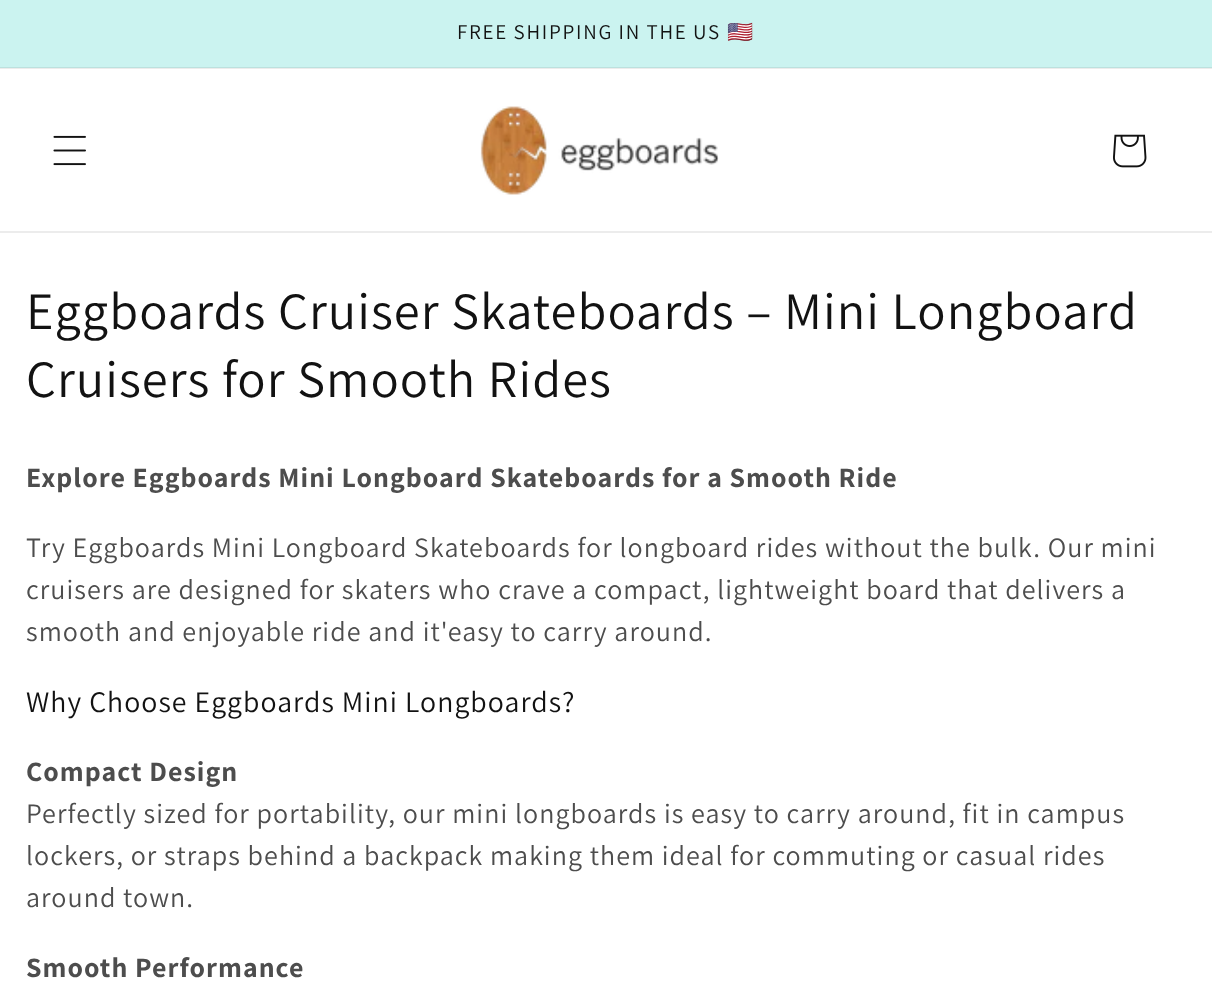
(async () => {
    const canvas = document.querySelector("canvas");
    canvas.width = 1212;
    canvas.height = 986;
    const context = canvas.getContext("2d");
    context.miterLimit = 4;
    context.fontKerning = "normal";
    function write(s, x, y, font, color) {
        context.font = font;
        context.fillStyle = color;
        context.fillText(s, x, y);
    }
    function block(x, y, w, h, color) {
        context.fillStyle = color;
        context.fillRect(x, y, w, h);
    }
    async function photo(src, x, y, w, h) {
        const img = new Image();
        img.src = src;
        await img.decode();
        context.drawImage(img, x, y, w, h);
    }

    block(0, 0, 1212, 986, "rgb(255, 255, 255)");
    block(0, 68, 1212, 1, "rgb(236, 236, 236)");
    block(0, 0, 1212, 67, "rgb(203, 243, 240)");
    block(0, 67, 1212, 1, "rgb(188, 225, 222)");
    context.letterSpacing = "1.75px";
    context.wordSpacing = "-0.5px";
    write("FREE SHIPPING IN THE US", 457, 39, "21px Assistant", "rgb(18, 18, 18)");
    context.wordSpacing = "0px";
    write("🇺🇸", 727, 39, "21px Noto Color Emoji", "rgb(18, 18, 18)");
    block(0, 231, 1212, 2, "rgb(236, 236, 236)");
    await photo("media/1.png", 53, 135, 33, 31);
    await photo("media/2.png", 480, 106, 239, 89);
    await photo("media/3.png", 1113, 134, 34, 34);
    context.letterSpacing = "1.05px";
    write("Eggboards Cruiser Skateboards – Mini Longboard", 26, 329, "52.5px Assistant", "rgb(18, 18, 18)");
    write("Cruisers for Smooth Rides", 26, 397, "52.5px Assistant", "rgb(18, 18, 18)");
    write("Explore Eggboards Mini Longboard Skateboards for a Smooth Ride", 26, 487, "bold 28px Assistant", "rgb(77, 77, 77)");
    write("Try Eggboards Mini Longboard Skateboards for longboard rides without the bulk. Our mini", 26, 557, "28px Assistant", "rgb(77, 77, 77)");
    write("cruisers are designed for skaters who crave a compact, lightweight board that delivers a", 26, 599, "28px Assistant", "rgb(77, 77, 77)");
    write("smooth and enjoyable ride and it'easy to carry around.", 26, 641, "28px Assistant", "rgb(77, 77, 77)");
    write("Why Choose Eggboards Mini Longboards?", 26, 712, "29.75px Assistant", "rgb(18, 18, 18)");
    write("Compact Design", 26, 781, "bold 28px Assistant", "rgb(77, 77, 77)");
    write("Perfectly sized for portability, our mini longboards is easy to carry around, fit in campus", 26, 823, "28px Assistant", "rgb(77, 77, 77)");
    write("lockers, or straps behind a backpack making them ideal for commuting or casual rides", 26, 865, "28px Assistant", "rgb(77, 77, 77)");
    write("around town.", 26, 907, "28px Assistant", "rgb(77, 77, 77)");
    write("Smooth Performance", 26, 977, "bold 28px Assistant", "rgb(77, 77, 77)");
})();
